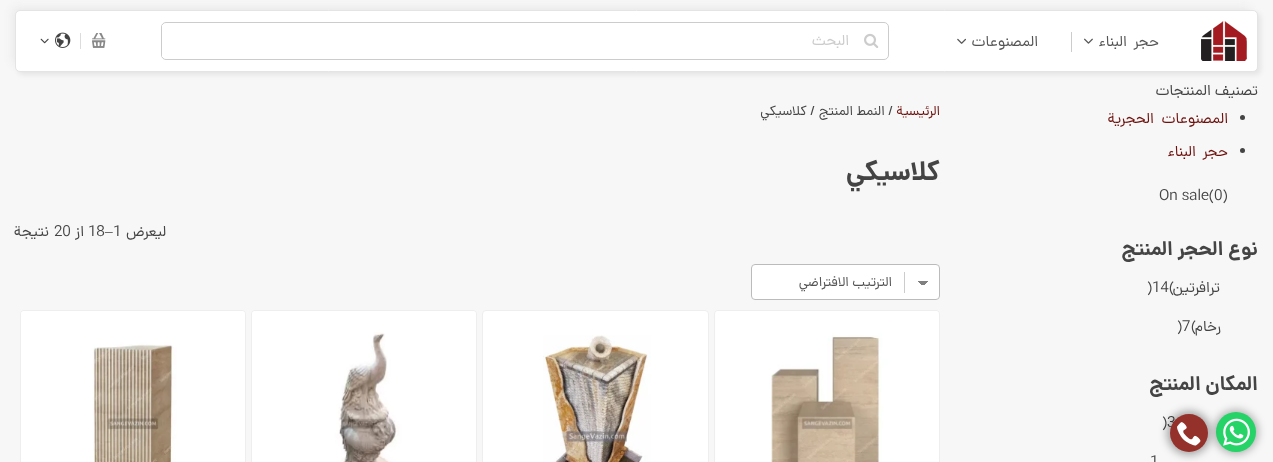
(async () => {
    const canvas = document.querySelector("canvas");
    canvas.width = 1273;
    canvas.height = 462;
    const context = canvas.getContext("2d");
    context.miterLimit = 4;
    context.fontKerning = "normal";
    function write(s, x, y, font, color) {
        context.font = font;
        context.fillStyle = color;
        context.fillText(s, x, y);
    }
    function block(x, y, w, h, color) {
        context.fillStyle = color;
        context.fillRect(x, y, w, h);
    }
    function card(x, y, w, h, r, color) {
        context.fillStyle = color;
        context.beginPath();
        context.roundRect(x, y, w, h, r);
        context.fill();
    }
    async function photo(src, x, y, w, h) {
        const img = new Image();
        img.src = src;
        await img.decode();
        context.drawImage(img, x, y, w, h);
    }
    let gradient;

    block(0, 0, 1273, 462, "rgb(247, 247, 247)");
    context.fillStyle = "rgb(232, 232, 232)";
    context.filter = "blur(5px)";
    context.beginPath();
    context.roundRect(13, 8, 1237, 56, 2);
    context.fill();
    context.filter = "none";
    context.fillStyle = "rgba(0, 0, 0, 0.07)";
    context.filter = "blur(2.5px)";
    context.beginPath();
    context.roundRect(18, 13, 1243, 62, 5);
    context.fill();
    context.filter = "none";
    context.fillStyle = "rgb(255, 255, 255)";
    context.beginPath();
    context.roundRect(15.5, 10.5, 1242, 61, 4.5);
    context.fill();
    context.strokeStyle = "rgb(228, 228, 228)";
    context.stroke();
    await photo("media/1.png", 1201, 21, 46, 40);
    context.letterSpacing = "-0.25px";
    context.wordSpacing = "3px";
    context.direction = "rtl";
    write("حجر البناء", 1159, 46, "15.25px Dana", "rgb(85, 85, 85)");
    await photo("media/2.png", 1084, 38, 9, 6);
    block(1071, 32, 1, 20, "rgb(204, 204, 204)");
    context.wordSpacing = "0px";
    write("المصنوعات", 1038, 46, "15.25px Dana", "rgb(85, 85, 85)");
    await photo("media/3.png", 957, 38, 9, 6);
    context.beginPath();
    context.roundRect(161.5, 22.5, 727, 37, 4.5);
    context.strokeStyle = "rgb(204, 204, 204)";
    context.stroke();
    await photo("media/4.png", 864, 33, 15, 15);
    block(162, 25, 1, 32, "rgb(255, 255, 255)");
    context.letterSpacing = "0px";
    write("البحث", 849, 45, "15.25px Dana", "rgb(204, 204, 204)");
    block(80, 33, 1, 16, "rgb(220, 220, 220)");
    await photo("media/5.png", 92, 33, 14, 15);
    await photo("media/6.png", 55, 32, 16, 16);
    await photo("media/7.png", 40, 38, 9, 6);
    write("تصنيف المنتجات", 1258, 95, "15.25px Dana", "rgb(68, 68, 68)");
    context.beginPath();
    context.arc(1242.5, 117.5, 2.5, 0, Math.PI * 2);
    context.fill();
    context.letterSpacing = "-0.25px";
    context.wordSpacing = "4px";
    write("المصنوعات الحجرية", 1228, 123, "15.25px Dana", "rgb(109, 17, 13)");
    context.fillStyle = "rgb(68, 68, 68)";
    context.beginPath();
    context.arc(1242.5, 150.5, 2.5, 0, Math.PI * 2);
    context.fill();
    context.wordSpacing = "3px";
    write("حجر البناء", 1228, 156, "15.25px Dana", "rgb(109, 17, 13)");
    context.letterSpacing = "0px";
    context.wordSpacing = "0px";
    context.direction = "ltr";
    write("On sale(0)", 1159, 200, "15.25px Dana", "rgb(68, 68, 68)");
    context.direction = "rtl";
    write("نوع الحجر المنتج", 1258, 255, "bold 20px Dana", "rgb(68, 68, 68)");
    context.letterSpacing = "-0.25px";
    write("ترافرتين", 1220, 292, "15.25px Dana", "rgb(68, 68, 68)");
    context.direction = "ltr";
    write("(", 1169, 292, "15.25px Dana", "rgb(68, 68, 68)");
    write(")14", 1147, 292, "15.25px Dana", "rgb(68, 68, 68)");
    context.direction = "rtl";
    write("رخام", 1221, 331, "15.25px Dana", "rgb(68, 68, 68)");
    context.direction = "ltr";
    write("(", 1191, 331, "15.25px Dana", "rgb(68, 68, 68)");
    write(")7", 1177, 331, "15.25px Dana", "rgb(68, 68, 68)");
    context.letterSpacing = "0px";
    context.direction = "rtl";
    write("المكان المنتج", 1258, 390, "bold 20px Dana", "rgb(68, 68, 68)");
    context.letterSpacing = "-0.25px";
    context.direction = "ltr";
    write(")3", 1162, 427, "15.25px Dana", "rgb(68, 68, 68)");
    write("1", 1150, 466, "15.25px Dana", "rgb(68, 68, 68)");
    context.letterSpacing = "0px";
    context.direction = "rtl";
    write("الرئيسية", 940, 115, "13.75px Dana", "rgb(109, 17, 13)");
    write("/ النمط المنتج / كلاسيكي", 893, 115, "13.75px Dana", "rgb(68, 68, 68)");
    write("كلاسيكي", 940, 180, "bold 27px Dana", "rgb(68, 68, 68)");
    context.letterSpacing = "-0.25px";
    write("لیعرض", 166, 236, "15.25px Dana", "rgb(68, 68, 68)");
    context.direction = "ltr";
    write("1", 113, 236, "15.25px Dana", "rgb(68, 68, 68)");
    write("–", 105, 236, "15.25px Liberation Serif", "rgb(68, 68, 68)");
    write("18", 88, 236, "15.25px Dana", "rgb(68, 68, 68)");
    context.direction = "rtl";
    write("از", 84, 236, "15.25px Dana", "rgb(68, 68, 68)");
    context.direction = "ltr";
    write("20", 54, 236, "15.25px Dana", "rgb(68, 68, 68)");
    context.direction = "rtl";
    write("نتيجة", 49, 236, "15.25px Dana", "rgb(68, 68, 68)");
    card(751, 264, 189, 36, 4, "rgb(255, 255, 255)");
    block(904, 272, 1, 21, "rgb(204, 204, 204)");
    gradient = context.createLinearGradient(923, 281, 928, 286);
    gradient.addColorStop(0.5, "rgb(128, 128, 128)");
    gradient.addColorStop(0.5, "rgb(255, 255, 255)");
    context.fillStyle = gradient;
    context.fillRect(923, 281, 5, 4);
    gradient = context.createLinearGradient(918, 286, 923, 281);
    gradient.addColorStop(0.5, "rgb(255, 255, 255)");
    gradient.addColorStop(0.5, "rgb(128, 128, 128)");
    context.fillStyle = gradient;
    context.fillRect(918, 281, 5, 4);
    context.beginPath();
    context.roundRect(751.5, 264.5, 188, 35, 3.5);
    context.strokeStyle = "rgb(187, 187, 187)";
    context.stroke();
    context.letterSpacing = "0px";
    write("الترتيب الافتراضي", 892, 286, "13.75px Dana", "rgb(85, 85, 85)");
    context.beginPath();
    context.roundRect(714.5, 310.5, 225, 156, 3.5);
    context.strokeStyle = "rgb(238, 238, 238)";
    context.stroke();
    await photo("media/8.png", 715, 311, 224, 151);
    context.fillStyle = "rgb(255, 255, 255)";
    context.beginPath();
    context.roundRect(482.5, 310.5, 226, 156, 3.5);
    context.fill();
    context.stroke();
    await photo("media/9.png", 543, 335, 108, 127);
    context.beginPath();
    context.roundRect(251.5, 310.5, 225, 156, 3.5);
    context.stroke();
    await photo("media/10.png", 252, 311, 224, 151);
    context.beginPath();
    context.roundRect(20.5, 310.5, 225, 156, 3.5);
    context.stroke();
    await photo("media/11.png", 21, 311, 224, 151);
    context.fillStyle = "rgba(0, 0, 0, 0.3)";
    context.filter = "blur(4px)";
    context.beginPath();
    context.roundRect(1214, 410, 44, 44, 22);
    context.fill();
    context.filter = "none";
    context.fillStyle = "rgb(37, 211, 102)";
    context.beginPath();
    context.arc(1236, 432, 20, 0, Math.PI * 2);
    context.fill();
    await photo("media/12.png", 1223, 418, 27, 28);
    context.fillStyle = "rgba(0, 0, 0, 0.34)";
    context.filter = "blur(4px)";
    context.beginPath();
    context.roundRect(1167, 411, 44, 44, 22);
    context.fill();
    context.filter = "none";
    context.fillStyle = "rgb(148, 49, 42)";
    context.beginPath();
    context.arc(1189, 433, 19, 0, Math.PI * 2);
    context.fill();
    await photo("media/13.png", 1177, 422, 24, 24);
})();
